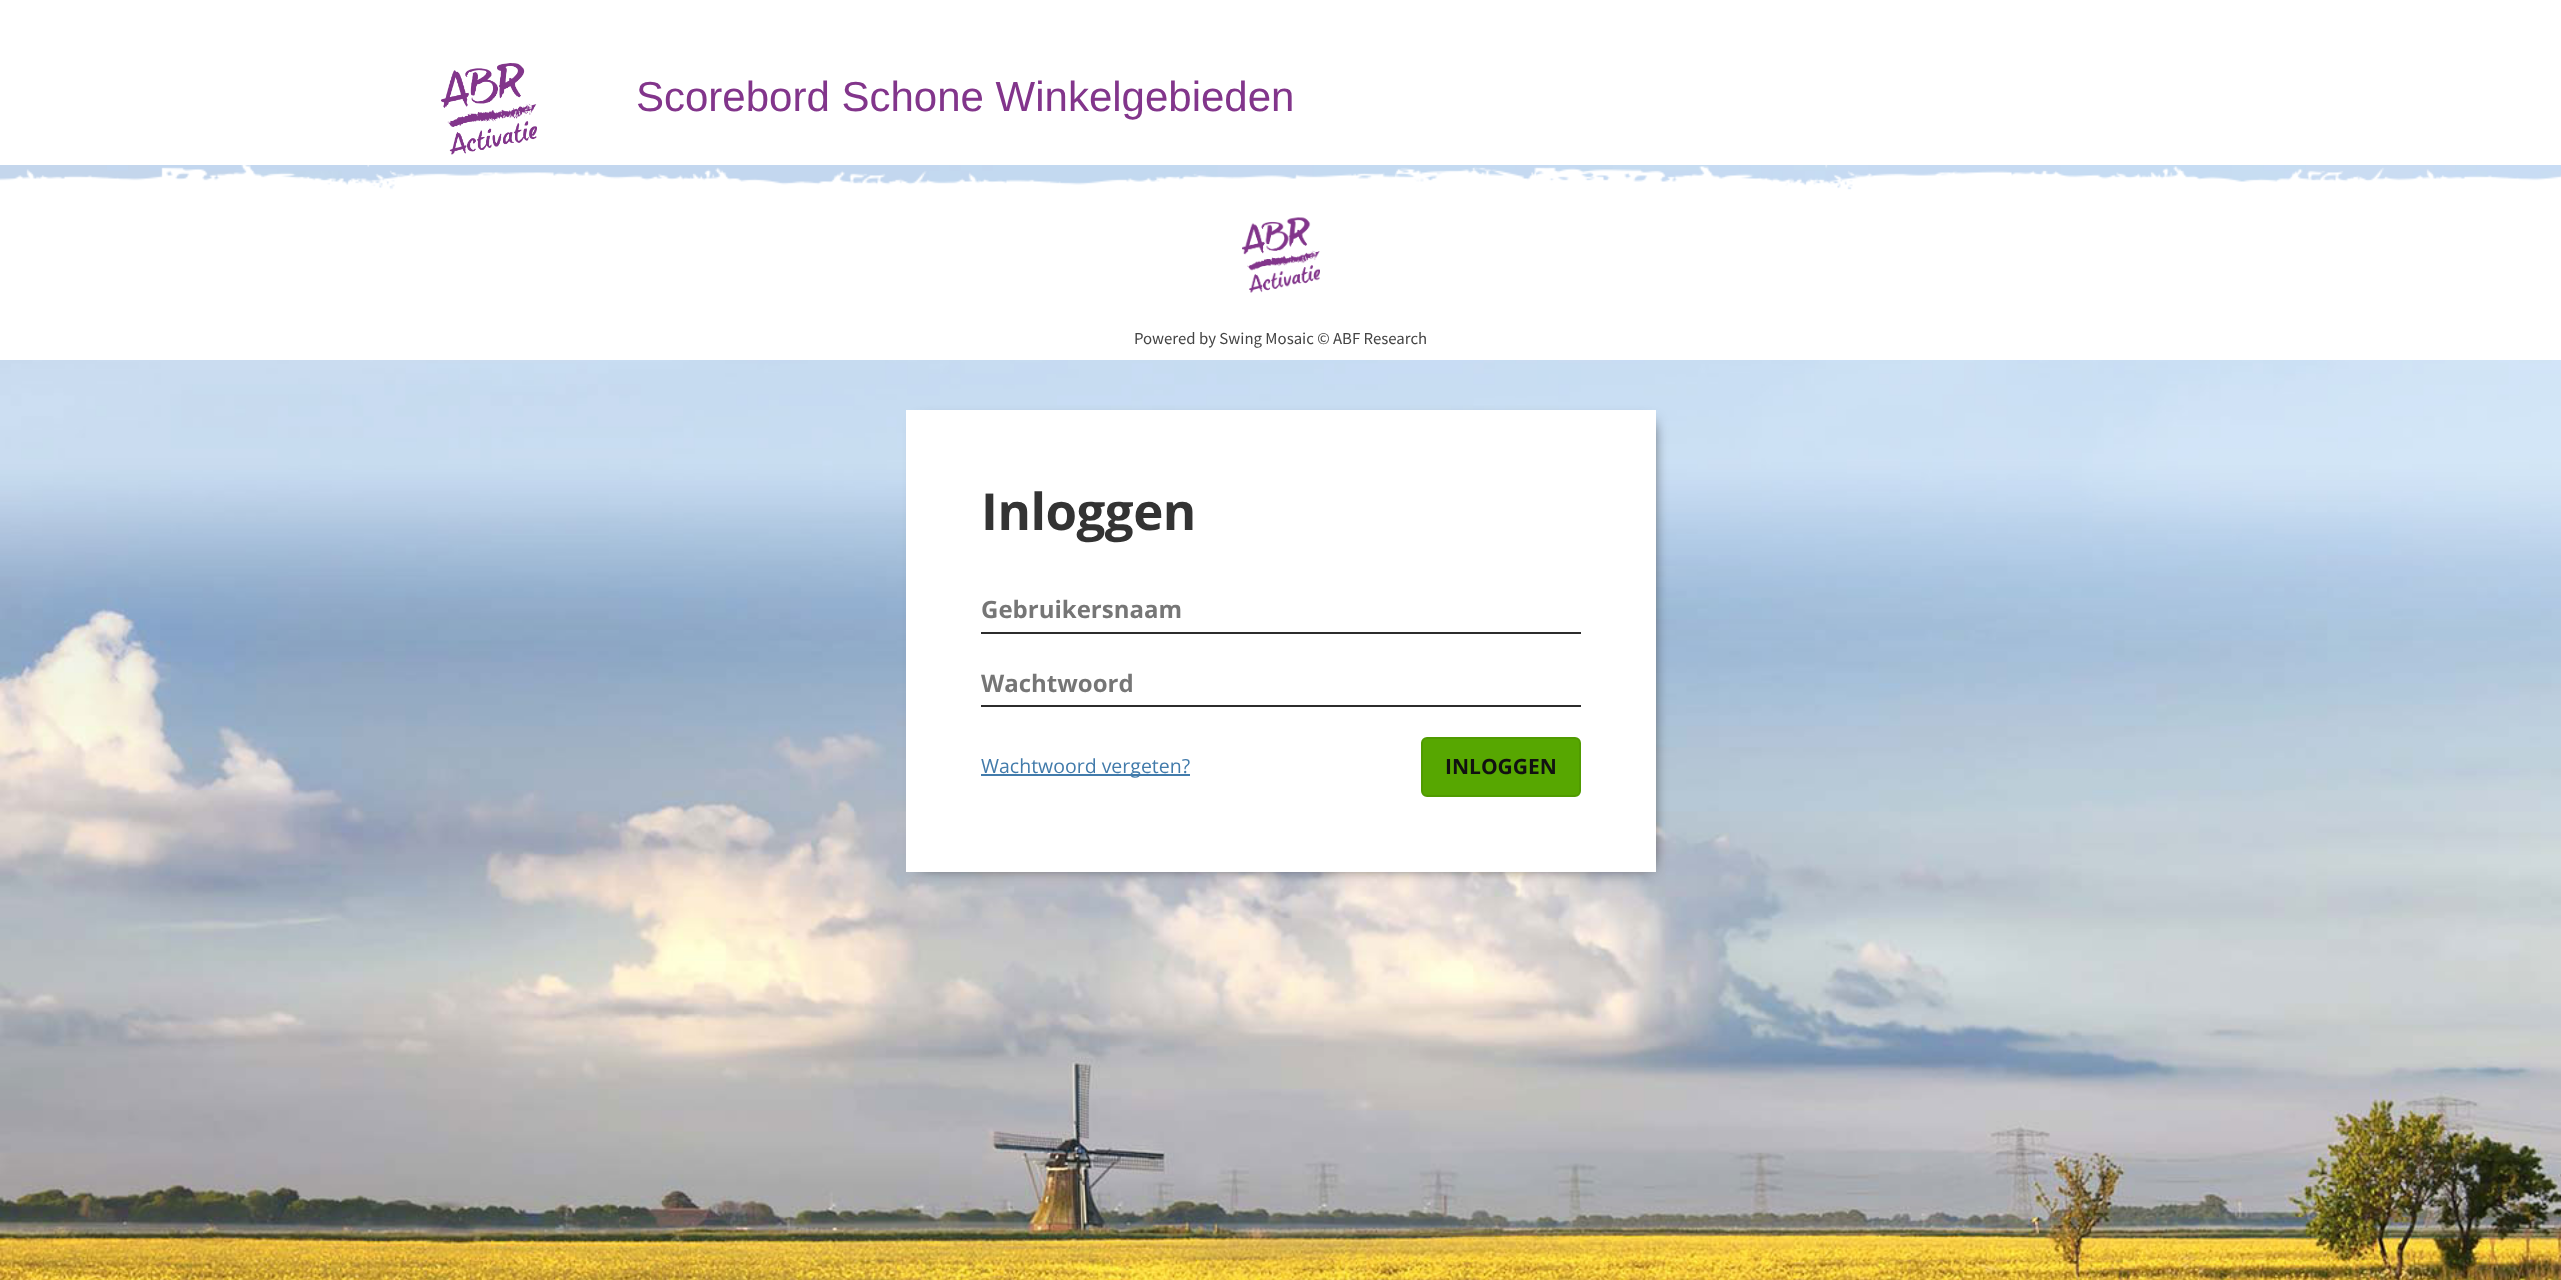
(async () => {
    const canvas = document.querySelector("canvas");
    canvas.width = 2561;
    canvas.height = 1280;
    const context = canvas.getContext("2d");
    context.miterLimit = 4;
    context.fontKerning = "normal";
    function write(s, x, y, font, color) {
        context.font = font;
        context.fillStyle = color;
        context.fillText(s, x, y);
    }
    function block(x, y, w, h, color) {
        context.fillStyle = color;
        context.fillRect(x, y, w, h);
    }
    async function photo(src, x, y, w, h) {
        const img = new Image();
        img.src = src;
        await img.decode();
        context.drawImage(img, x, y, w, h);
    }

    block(0, 0, 2561, 1280, "rgb(255, 255, 255)");
    await photo("media/1.png", 0, 165, 2561, 1115);
    await photo("media/2.png", 441, 63, 96, 92);
    write("Scorebord Schone Winkelgebieden", 636, 111, "42px Liberation Sans", "rgb(130, 53, 139)");
    await photo("media/3.png", 0, 165, 2561, 30);
    block(0, 195, 2561, 165, "rgb(255, 255, 255)");
    await photo("media/4.png", 1242, 217, 78, 76);
    write("Powered by Swing Mosaic © ABF Research", 1134, 344, "16.75px Source Sans Pro", "rgb(68, 68, 68)");
    context.fillStyle = "rgb(44, 44, 44)";
    context.filter = "blur(7.5px)";
    context.beginPath();
    context.rect(920, 423, 732, 444);
    context.fill();
    context.filter = "none";
    block(906, 410, 750, 462, "rgb(255, 255, 255)");
    context.letterSpacing = "-0.5px";
    write("Inloggen", 981, 530, "bold 51px Open Sans", "rgb(51, 51, 51)");
    context.letterSpacing = "0px";
    write("Gebruikersnaam", 981, 618, "bold 24px Open Sans", "rgb(118, 118, 118)");
    block(981, 632, 600, 2, "rgb(44, 44, 44)");
    write("Wachtwoord", 981, 692, "bold 24px Open Sans", "rgb(118, 118, 118)");
    block(981, 705, 600, 2, "rgb(44, 44, 44)");
    block(981, 774, 209, 2, "rgb(66, 123, 171)");
    write("Wachtwoord vergeten?", 981, 773, "19.5px Open Sans", "rgb(66, 123, 171)");
    context.fillStyle = "rgb(87, 167, 1)";
    context.beginPath();
    context.roundRect(1422, 738, 158, 58, 5);
    context.fill();
    context.strokeStyle = "rgb(80, 155, 0)";
    context.lineWidth = 2;
    context.stroke();
    write("INLOGGEN", 1445, 774, "bold 21px Open Sans", "rgb(17, 17, 17)");
})();
